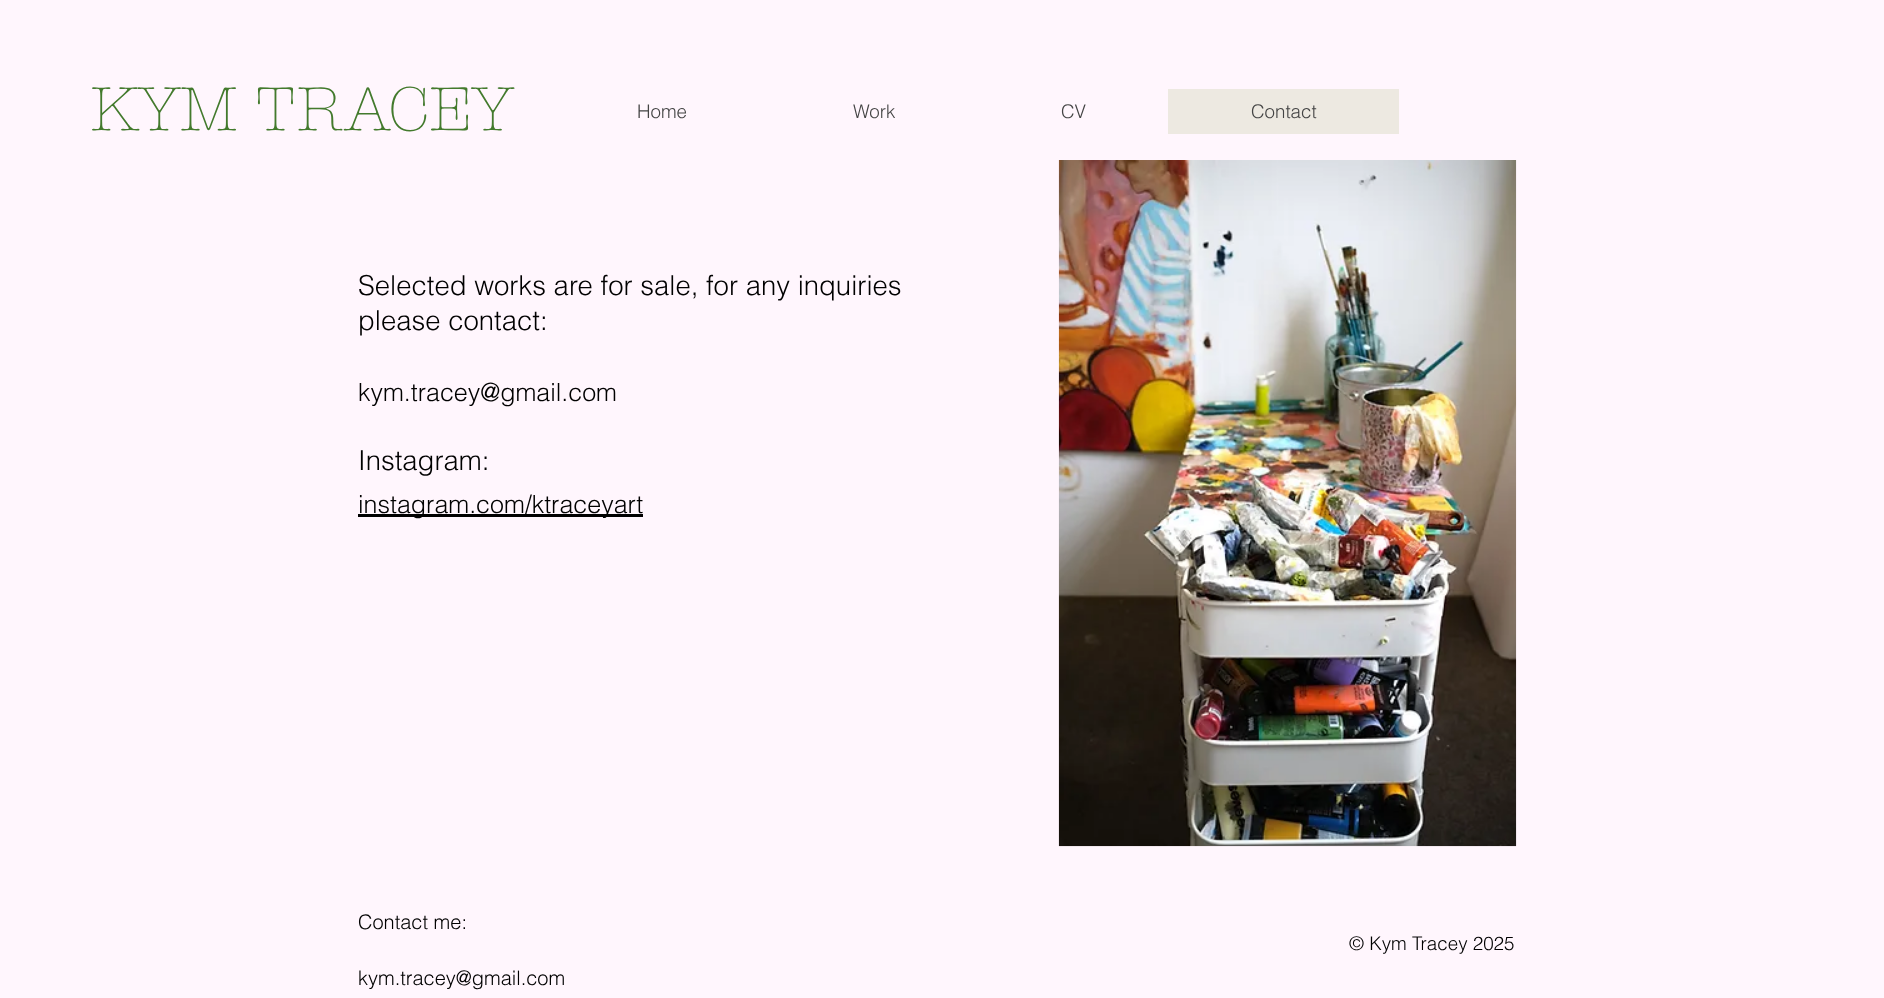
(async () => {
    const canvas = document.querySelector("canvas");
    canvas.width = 1884;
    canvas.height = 998;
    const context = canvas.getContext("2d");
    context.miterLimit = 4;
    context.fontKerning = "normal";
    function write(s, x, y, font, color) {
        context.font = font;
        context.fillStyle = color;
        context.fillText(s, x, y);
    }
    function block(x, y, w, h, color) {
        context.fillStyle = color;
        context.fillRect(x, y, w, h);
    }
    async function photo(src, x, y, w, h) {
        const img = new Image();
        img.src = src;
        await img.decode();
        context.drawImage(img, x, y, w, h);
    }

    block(0, 0, 1884, 998, "rgb(255, 246, 253)");
    write("KYM TRACEY", 90, 130, "300 62.5px 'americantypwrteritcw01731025'", "rgb(67, 122, 45)");
    write("Home", 637, 118, "300 18.75px helvetica", "rgb(68, 68, 68)");
    write("Work", 853, 118, "300 18.75px helvetica", "rgb(68, 68, 68)");
    write("CV", 1061, 118, "300 18.75px helvetica", "rgb(68, 68, 68)");
    block(1168, 89, 231, 45, "rgb(237, 233, 225)");
    write("Contact", 1251, 118, "300 18.75px helvetica", "rgb(68, 68, 68)");
    write("Selected works are for sale, for any inquiries", 358, 295, "300 27.5px helvetica", "rgb(0, 0, 0)");
    write("please contact:", 358, 330, "300 27.5px helvetica", "rgb(0, 0, 0)");
    await photo("media/1.png", 1058, 160, 459, 687);
    write("kym.tracey@gmail.com", 358, 401, "300 25px helvetica", "rgb(0, 0, 0)");
    write("Instagram:", 358, 470, "300 27.5px helvetica", "rgb(0, 0, 0)");
    block(358, 514, 285, 3, "rgb(0, 0, 0)");
    write("instagram.com/ktraceyart", 358, 513, "300 25px helvetica", "rgb(0, 0, 0)");
    write("Contact me:", 358, 929, "300 20px helvetica", "rgb(0, 0, 0)");
    write("kym.tracey@gmail.com", 358, 985, "300 20px helvetica", "rgb(0, 0, 0)");
    write("© Kym Tracey 2025", 1349, 950, "300 18.75px helvetica", "rgb(0, 0, 0)");
})();
